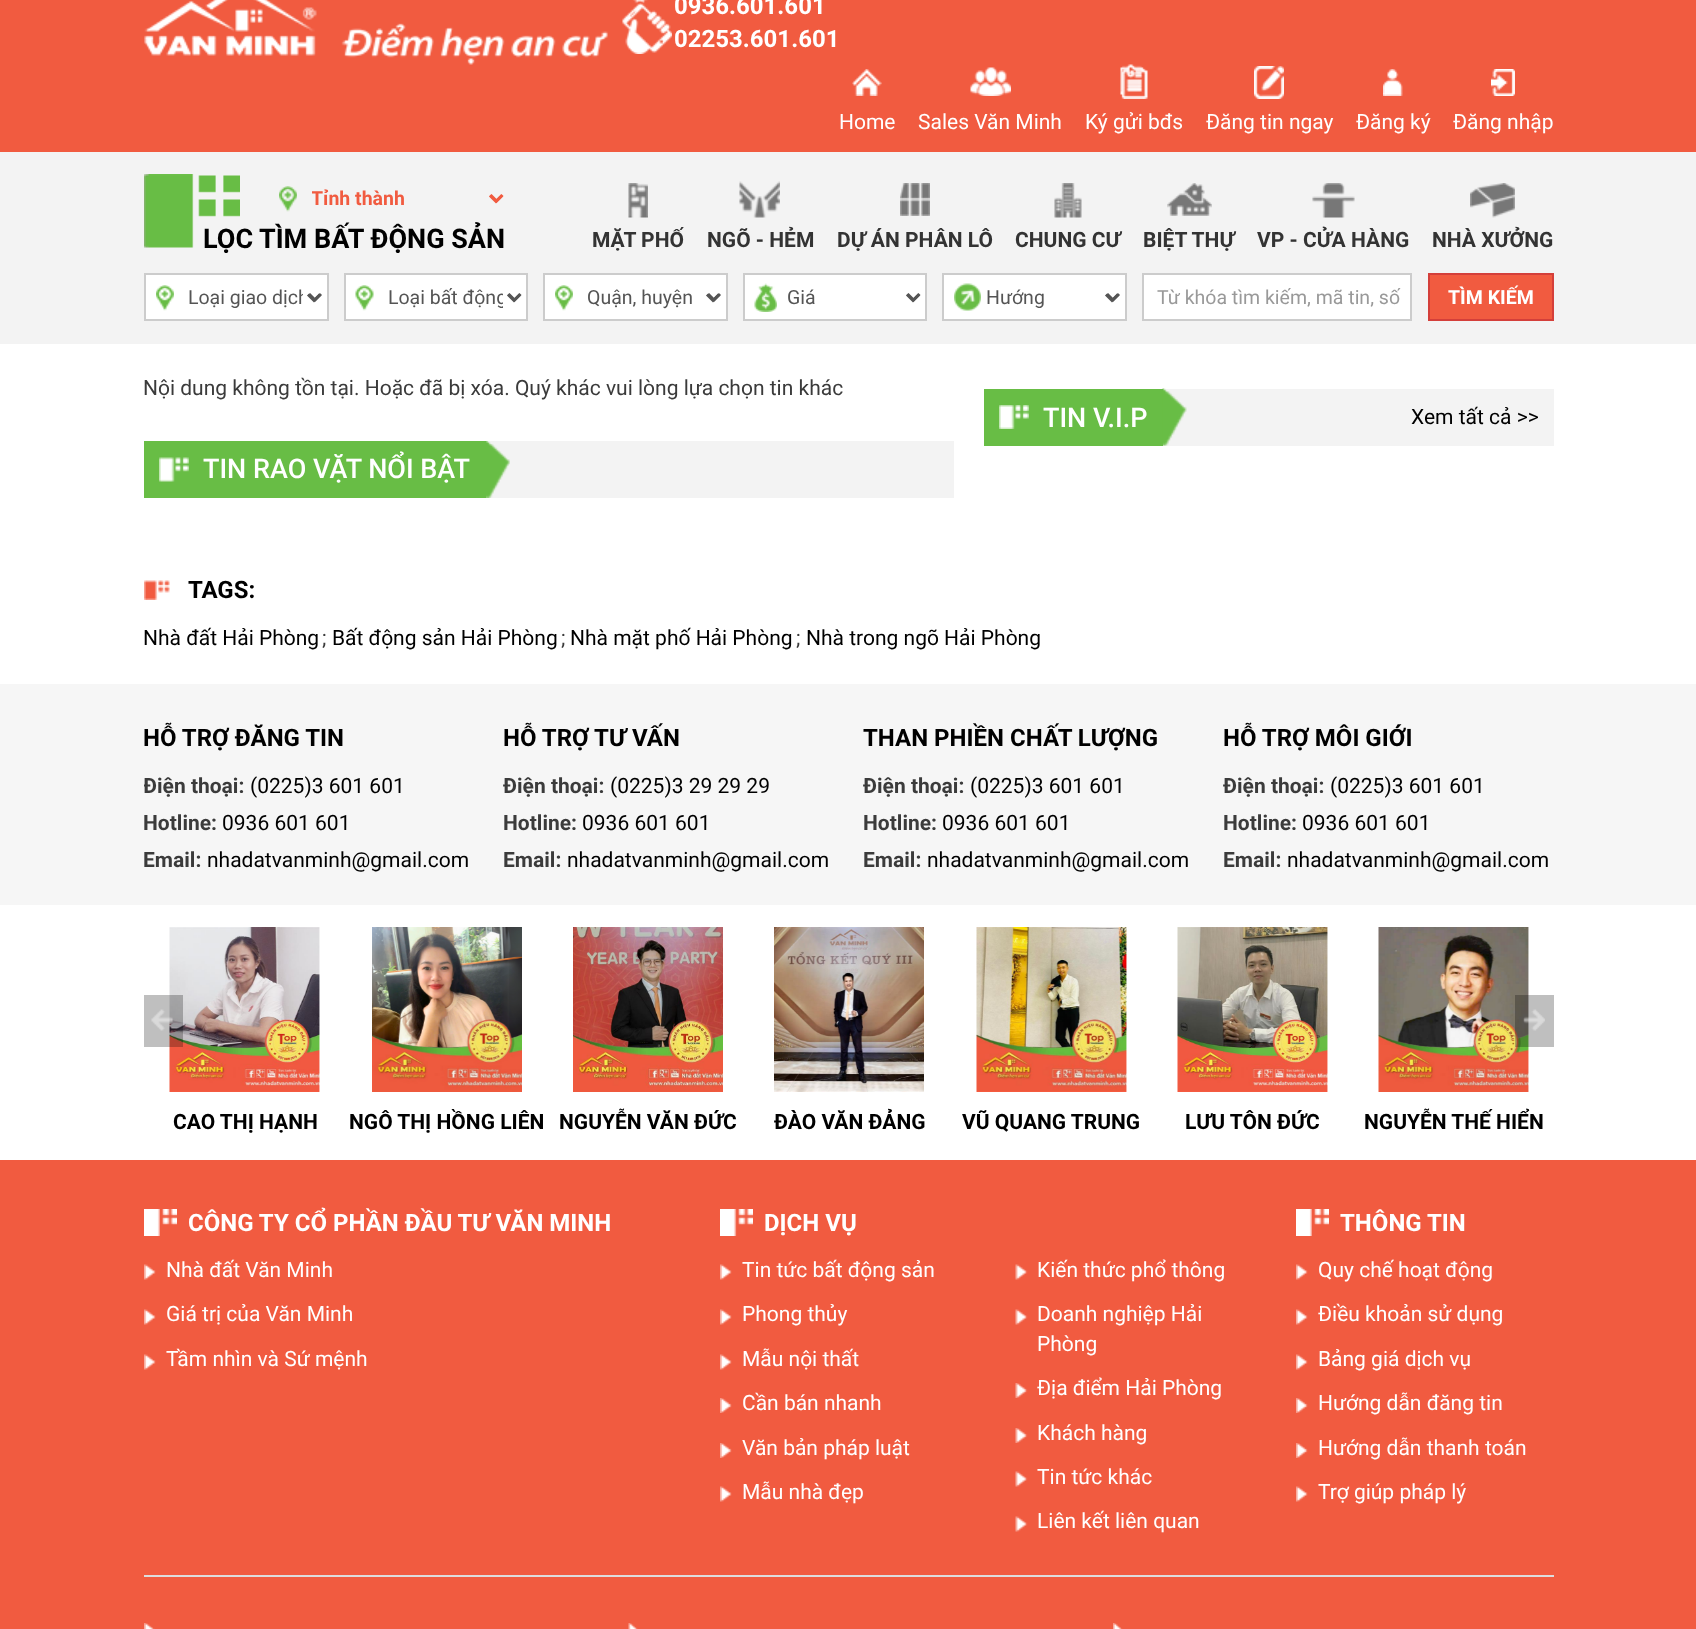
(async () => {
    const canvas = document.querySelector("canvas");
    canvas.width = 1696;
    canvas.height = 1629;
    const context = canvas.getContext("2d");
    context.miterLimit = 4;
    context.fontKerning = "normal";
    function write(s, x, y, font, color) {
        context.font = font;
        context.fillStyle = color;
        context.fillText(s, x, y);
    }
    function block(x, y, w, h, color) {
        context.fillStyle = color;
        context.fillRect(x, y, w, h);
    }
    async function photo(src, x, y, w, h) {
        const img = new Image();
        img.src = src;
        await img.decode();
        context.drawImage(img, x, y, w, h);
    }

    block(0, 0, 1696, 1629, "rgb(255, 255, 255)");
    block(0, 0, 1696, 152, "rgb(241, 91, 64)");
    await photo("media/1.png", 144, 0, 464, 65);
    await photo("media/2.png", 622, 0, 50, 54);
    write("0936.601.601", 674, 14, "bold 24px Roboto", "rgb(255, 255, 255)");
    write("02253.601.601", 674, 47, "bold 24px Roboto", "rgb(255, 255, 255)");
    await photo("media/3.png", 852, 69, 30, 27);
    write("Home", 839, 129, "21px Roboto", "rgb(255, 255, 255)");
    await photo("media/4.png", 970, 67, 41, 29);
    write("Sales Văn Minh", 918, 129, "21px Roboto", "rgb(255, 255, 255)");
    await photo("media/5.png", 1120, 64, 28, 35);
    write("Ký gửi bđs", 1085, 129, "21px Roboto", "rgb(255, 255, 255)");
    await photo("media/6.png", 1254, 66, 30, 33);
    write("Đăng tin ngay", 1206, 129, "21px Roboto", "rgb(255, 255, 255)");
    await photo("media/7.png", 1383, 69, 20, 27);
    write("Đăng ký", 1356, 129, "21px Roboto", "rgb(255, 255, 255)");
    await photo("media/8.png", 1491, 69, 24, 27);
    write("Đăng nhập", 1453, 129, "21px Roboto", "rgb(255, 255, 255)");
    block(0, 152, 1696, 192, "rgb(243, 243, 243)");
    await photo("media/9.png", 279, 186, 225, 26);
    context.beginPath();
    context.moveTo(490, 195.5);
    context.lineTo(496, 201.5);
    context.lineTo(502, 195.5);
    context.strokeStyle = "rgb(241, 91, 64)";
    context.lineWidth = 3;
    context.stroke();
    context.save();
    context.beginPath();
    context.rect(312, 186, 173, 26);
    context.clip();
    write("Tỉnh thành", 311, 205, "bold 19.5px Roboto", "rgb(241, 91, 64)");
    context.restore();
    block(146, 275, 181, 44, "rgb(255, 255, 255)");
    await photo("media/10.png", 156, 285, 166, 26);
    context.strokeStyle = "rgb(204, 204, 204)";
    context.lineWidth = 2;
    context.strokeRect(145, 274, 183, 46);
    context.beginPath();
    context.moveTo(308, 294.5);
    context.lineTo(314, 300.5);
    context.lineTo(320, 294.5);
    context.strokeStyle = "rgb(85, 85, 85)";
    context.lineWidth = 3;
    context.stroke();
    context.save();
    context.beginPath();
    context.rect(189, 285, 114, 26);
    context.clip();
    write("Loại giao dịch", 188, 304, "19.5px Roboto", "rgb(85, 85, 85)");
    context.restore();
    block(346, 275, 180, 44, "rgb(255, 255, 255)");
    await photo("media/11.png", 355, 285, 167, 26);
    context.strokeStyle = "rgb(204, 204, 204)";
    context.lineWidth = 2;
    context.strokeRect(345, 274, 182, 46);
    context.beginPath();
    context.moveTo(508, 294.5);
    context.lineTo(514, 300.5);
    context.lineTo(520, 294.5);
    context.strokeStyle = "rgb(85, 85, 85)";
    context.lineWidth = 3;
    context.stroke();
    context.save();
    context.beginPath();
    context.rect(389, 285, 114, 26);
    context.clip();
    write("Loại bất động", 388, 304, "19.5px Roboto", "rgb(85, 85, 85)");
    context.restore();
    block(545, 275, 181, 44, "rgb(255, 255, 255)");
    await photo("media/10.png", 555, 285, 166, 26);
    context.strokeStyle = "rgb(204, 204, 204)";
    context.lineWidth = 2;
    context.strokeRect(544, 274, 183, 46);
    context.beginPath();
    context.moveTo(707, 294.5);
    context.lineTo(713, 300.5);
    context.lineTo(719, 294.5);
    context.strokeStyle = "rgb(85, 85, 85)";
    context.lineWidth = 3;
    context.stroke();
    write("Quận, huyện", 587, 304, "19.5px Roboto", "rgb(85, 85, 85)");
    block(745, 275, 180, 44, "rgb(255, 255, 255)");
    await photo("media/12.png", 754, 283, 167, 29);
    context.strokeStyle = "rgb(204, 204, 204)";
    context.lineWidth = 2;
    context.strokeRect(744, 274, 182, 46);
    context.beginPath();
    context.moveTo(907, 294.5);
    context.lineTo(913, 300.5);
    context.lineTo(919, 294.5);
    context.strokeStyle = "rgb(85, 85, 85)";
    context.lineWidth = 3;
    context.stroke();
    write("Giá", 787, 304, "19.5px Roboto", "rgb(85, 85, 85)");
    block(944, 275, 181, 44, "rgb(255, 255, 255)");
    await photo("media/13.png", 954, 283, 166, 28);
    context.strokeStyle = "rgb(204, 204, 204)";
    context.lineWidth = 2;
    context.strokeRect(943, 274, 183, 46);
    context.beginPath();
    context.moveTo(1106, 294.5);
    context.lineTo(1112, 300.5);
    context.lineTo(1118, 294.5);
    context.strokeStyle = "rgb(85, 85, 85)";
    context.lineWidth = 3;
    context.stroke();
    write("Hướng", 986, 304, "19.5px Roboto", "rgb(85, 85, 85)");
    context.fillStyle = "rgb(255, 255, 255)";
    context.beginPath();
    context.rect(1143, 274, 268, 46);
    context.fill();
    context.strokeStyle = "rgb(204, 204, 204)";
    context.lineWidth = 2;
    context.stroke();
    write("Từ khóa tìm kiếm, mã tin, số", 1157, 304, "19.5px Roboto", "rgb(153, 153, 153)");
    context.fillStyle = "rgb(241, 91, 64)";
    context.beginPath();
    context.rect(1429, 274, 124, 46);
    context.fill();
    context.strokeStyle = "rgb(212, 63, 58)";
    context.stroke();
    write("TÌM KIẾM", 1448, 304, "bold 19.5px Roboto", "rgb(255, 255, 255)");
    await photo("media/14.png", 144, 174, 96, 74);
    write("LỌC TÌM BẤT ĐỘNG SẢN", 203, 248, "bold 27px Roboto", "rgb(0, 0, 0)");
    await photo("media/15.png", 628, 183, 20, 35);
    write("MẶT PHỐ", 592, 247, "bold 21px Roboto", "rgb(51, 51, 51)");
    await photo("media/16.png", 739, 181, 41, 37);
    write("NGÕ - HẺM", 707, 247, "bold 21px Roboto", "rgb(51, 51, 51)");
    await photo("media/17.png", 900, 183, 30, 33);
    write("DỰ ÁN PHÂN LÔ", 837, 247, "bold 21px Roboto", "rgb(51, 51, 51)");
    await photo("media/18.png", 1054, 183, 28, 35);
    write("CHUNG CƯ", 1015, 247, "bold 21px Roboto", "rgb(51, 51, 51)");
    await photo("media/19.png", 1167, 183, 45, 33);
    write("BIỆT THỰ", 1143, 247, "bold 21px Roboto", "rgb(51, 51, 51)");
    await photo("media/20.png", 1312, 183, 43, 35);
    write("VP - CỬA HÀNG", 1257, 247, "bold 21px Roboto", "rgb(51, 51, 51)");
    await photo("media/21.png", 1470, 183, 45, 35);
    write("NHÀ XƯỞNG", 1432, 247, "bold 21px Roboto", "rgb(51, 51, 51)");
    write("Nội dung không tồn tại. Hoặc đã bị xóa. Quý khác vui lòng lựa chọn tin khác", 143, 395, "21px Roboto", "rgb(59, 59, 59)");
    block(486, 441, 468, 57, "rgb(243, 243, 243)");
    block(144, 441, 342, 57, "rgb(104, 189, 69)");
    await photo("media/22.png", 159, 457, 30, 25);
    write("TIN RAO VẶT NỔI BẬT", 203, 478, "500 27px Roboto", "rgb(255, 255, 255)");
    await photo("media/23.png", 486, 441, 24, 57);
    block(1163, 389, 391, 57, "rgb(243, 243, 243)");
    block(984, 389, 179, 57, "rgb(104, 189, 69)");
    await photo("media/24.png", 999, 405, 30, 24);
    write("TIN V.I.P", 1043, 427, "500 27px Roboto", "rgb(255, 255, 255)");
    await photo("media/25.png", 1162, 388, 25, 58);
    write("Xem tất cả >>", 1411, 424, "21px Roboto", "rgb(0, 0, 0)");
    await photo("media/26.png", 144, 580, 26, 20);
    write("TAGS:", 188, 598, "bold 24px Roboto", "rgb(0, 0, 0)");
    write("Nhà đất Hải Phòng", 143, 645, "21px Roboto", "rgb(0, 0, 0)");
    write(";", 322, 645, "21px Roboto", "rgb(59, 59, 59)");
    write("Bất động sản Hải Phòng", 332, 645, "21px Roboto", "rgb(0, 0, 0)");
    write(";", 561, 645, "21px Roboto", "rgb(59, 59, 59)");
    write("Nhà mặt phố Hải Phòng", 570, 645, "21px Roboto", "rgb(0, 0, 0)");
    write(";", 796, 645, "21px Roboto", "rgb(59, 59, 59)");
    write("Nhà trong ngõ Hải Phòng", 806, 645, "21px Roboto", "rgb(0, 0, 0)");
    block(0, 684, 1696, 221, "rgb(246, 246, 246)");
    write("HỖ TRỢ ĐĂNG TIN", 143, 746, "bold 24px Roboto", "rgb(0, 0, 0)");
    context.save();
    context.beginPath();
    context.rect(144, 707, 1410, 168);
    context.clip();
    write("Điện thoại:", 143, 793, "bold 21px Roboto", "rgb(59, 59, 59)");
    context.restore();
    write("(0225)3 601 601", 250, 793, "21px Roboto", "rgb(0, 0, 0)");
    write("Hotline:", 143, 830, "bold 21px Roboto", "rgb(59, 59, 59)");
    write("0936 601 601", 222, 830, "21px Roboto", "rgb(0, 0, 0)");
    write("Email:", 143, 867, "bold 21px Roboto", "rgb(59, 59, 59)");
    write("nhadatvanminh@gmail.com", 207, 867, "21px Roboto", "rgb(0, 0, 0)");
    write("HỖ TRỢ TƯ VẤN", 503, 746, "bold 24px Roboto", "rgb(0, 0, 0)");
    write("Điện thoại:", 503, 793, "bold 21px Roboto", "rgb(59, 59, 59)");
    write("(0225)3 29 29 29", 610, 793, "21px Roboto", "rgb(0, 0, 0)");
    write("Hotline:", 503, 830, "bold 21px Roboto", "rgb(59, 59, 59)");
    write("0936 601 601", 582, 830, "21px Roboto", "rgb(0, 0, 0)");
    write("Email:", 503, 867, "bold 21px Roboto", "rgb(59, 59, 59)");
    write("nhadatvanminh@gmail.com", 567, 867, "21px Roboto", "rgb(0, 0, 0)");
    write("THAN PHIỀN CHẤT LƯỢNG", 863, 746, "bold 24px Roboto", "rgb(0, 0, 0)");
    write("Điện thoại:", 863, 793, "bold 21px Roboto", "rgb(59, 59, 59)");
    write("(0225)3 601 601", 970, 793, "21px Roboto", "rgb(0, 0, 0)");
    write("Hotline:", 863, 830, "bold 21px Roboto", "rgb(59, 59, 59)");
    write("0936 601 601", 942, 830, "21px Roboto", "rgb(0, 0, 0)");
    write("Email:", 863, 867, "bold 21px Roboto", "rgb(59, 59, 59)");
    write("nhadatvanminh@gmail.com", 927, 867, "21px Roboto", "rgb(0, 0, 0)");
    write("HỖ TRỢ MÔI GIỚI", 1223, 746, "bold 24px Roboto", "rgb(0, 0, 0)");
    write("Điện thoại:", 1223, 793, "bold 21px Roboto", "rgb(59, 59, 59)");
    write("(0225)3 601 601", 1330, 793, "21px Roboto", "rgb(0, 0, 0)");
    write("Hotline:", 1223, 830, "bold 21px Roboto", "rgb(59, 59, 59)");
    write("0936 601 601", 1302, 830, "21px Roboto", "rgb(0, 0, 0)");
    write("Email:", 1223, 867, "bold 21px Roboto", "rgb(59, 59, 59)");
    write("nhadatvanminh@gmail.com", 1287, 867, "21px Roboto", "rgb(0, 0, 0)");
    await photo("media/29.png", 169, 927, 151, 165);
    block(144, 995, 39, 52, "rgba(0, 0, 0, 0.25)");
    await photo("media/27.png", 151, 1009, 22, 22);
    await photo("media/35.png", 1378, 927, 151, 165);
    block(1515, 995, 39, 52, "rgba(0, 0, 0, 0.25)");
    await photo("media/28.png", 1523, 1009, 22, 22);
    write("CAO THỊ HẠNH", 173, 1129, "bold 21px Roboto", "rgb(0, 0, 0)");
    await photo("media/30.png", 372, 927, 150, 165);
    write("NGÔ THỊ HỒNG LIÊN", 349, 1129, "bold 21px Roboto", "rgb(0, 0, 0)");
    await photo("media/31.png", 573, 927, 150, 165);
    write("NGUYỄN VĂN ĐỨC", 559, 1129, "bold 21px Roboto", "rgb(0, 0, 0)");
    await photo("media/32.png", 774, 927, 150, 165);
    write("ĐÀO VĂN ĐẢNG", 774, 1129, "bold 21px Roboto", "rgb(0, 0, 0)");
    await photo("media/33.png", 976, 927, 151, 165);
    write("VŨ QUANG TRUNG", 962, 1129, "bold 21px Roboto", "rgb(0, 0, 0)");
    await photo("media/34.png", 1177, 927, 151, 165);
    write("LƯU TÔN ĐỨC", 1185, 1129, "bold 21px Roboto", "rgb(0, 0, 0)");
    write("NGUYỄN THẾ HIỂN", 1364, 1129, "bold 21px Roboto", "rgb(0, 0, 0)");
    block(0, 1160, 1696, 469, "rgb(241, 91, 64)");
    await photo("media/36.png", 144, 1209, 33, 27);
    write("CÔNG TY CỔ PHẦN ĐẦU TƯ VĂN MINH", 188, 1231, "bold 24px Roboto", "rgb(255, 255, 255)");
    await photo("media/37.png", 144, 1264, 12, 16);
    write("Nhà đất Văn Minh", 166, 1277, "21px Roboto", "rgb(255, 255, 255)");
    await photo("media/37.png", 144, 1309, 12, 16);
    write("Giá trị của Văn Minh", 166, 1321, "21px Roboto", "rgb(255, 255, 255)");
    await photo("media/37.png", 144, 1354, 12, 16);
    write("Tầm nhìn và Sứ mệnh", 166, 1366, "21px Roboto", "rgb(255, 255, 255)");
    await photo("media/38.png", 720, 1209, 33, 27);
    write("DỊCH VỤ", 764, 1231, "bold 24px Roboto", "rgb(255, 255, 255)");
    await photo("media/37.png", 720, 1264, 12, 16);
    write("Tin tức bất động sản", 742, 1277, "21px Roboto", "rgb(255, 255, 255)");
    await photo("media/37.png", 720, 1309, 12, 16);
    write("Phong thủy", 742, 1321, "21px Roboto", "rgb(255, 255, 255)");
    await photo("media/37.png", 720, 1354, 12, 16);
    write("Mẫu nội thất", 742, 1366, "21px Roboto", "rgb(255, 255, 255)");
    await photo("media/39.png", 720, 1398, 12, 15);
    write("Cần bán nhanh", 742, 1410, "21px Roboto", "rgb(255, 255, 255)");
    await photo("media/39.png", 720, 1443, 12, 15);
    write("Văn bản pháp luật", 742, 1455, "21px Roboto", "rgb(255, 255, 255)");
    await photo("media/37.png", 720, 1486, 12, 16);
    write("Mẫu nhà đẹp", 742, 1499, "21px Roboto", "rgb(255, 255, 255)");
    await photo("media/40.png", 1015, 1264, 13, 16);
    write("Kiến thức phổ thông", 1037, 1277, "21px Roboto", "rgb(255, 255, 255)");
    await photo("media/40.png", 1015, 1309, 13, 16);
    write("Doanh nghiệp Hải", 1037, 1321, "21px Roboto", "rgb(255, 255, 255)");
    write("Phòng", 1037, 1351, "21px Roboto", "rgb(255, 255, 255)");
    await photo("media/41.png", 1015, 1383, 13, 15);
    write("Địa điểm Hải Phòng", 1037, 1395, "21px Roboto", "rgb(255, 255, 255)");
    await photo("media/41.png", 1015, 1428, 13, 15);
    write("Khách hàng", 1037, 1440, "21px Roboto", "rgb(255, 255, 255)");
    await photo("media/40.png", 1015, 1471, 13, 16);
    write("Tin tức khác", 1037, 1484, "21px Roboto", "rgb(255, 255, 255)");
    await photo("media/40.png", 1015, 1516, 13, 16);
    write("Liên kết liên quan", 1037, 1528, "21px Roboto", "rgb(255, 255, 255)");
    await photo("media/42.png", 1296, 1209, 33, 27);
    write("THÔNG TIN", 1340, 1231, "bold 24px Roboto", "rgb(255, 255, 255)");
    await photo("media/43.png", 1296, 1264, 12, 16);
    write("Quy chế hoạt động", 1318, 1277, "21px Roboto", "rgb(255, 255, 255)");
    await photo("media/43.png", 1296, 1309, 12, 16);
    write("Điều khoản sử dụng", 1318, 1321, "21px Roboto", "rgb(255, 255, 255)");
    await photo("media/43.png", 1296, 1354, 12, 16);
    write("Bảng giá dịch vụ", 1318, 1366, "21px Roboto", "rgb(255, 255, 255)");
    await photo("media/44.png", 1296, 1398, 12, 15);
    write("Hướng dẫn đăng tin", 1318, 1410, "21px Roboto", "rgb(255, 255, 255)");
    await photo("media/44.png", 1296, 1443, 12, 15);
    write("Hướng dẫn thanh toán", 1318, 1455, "21px Roboto", "rgb(255, 255, 255)");
    await photo("media/43.png", 1296, 1486, 12, 16);
    write("Trợ giúp pháp lý", 1318, 1499, "21px Roboto", "rgb(255, 255, 255)");
    block(144, 1575, 1410, 2, "rgb(221, 221, 221)");
    await photo("media/45.png", 144, 1623, 11, 6);
    await photo("media/46.png", 628, 1623, 10, 6);
    await photo("media/47.png", 1113, 1623, 10, 6);
})();
